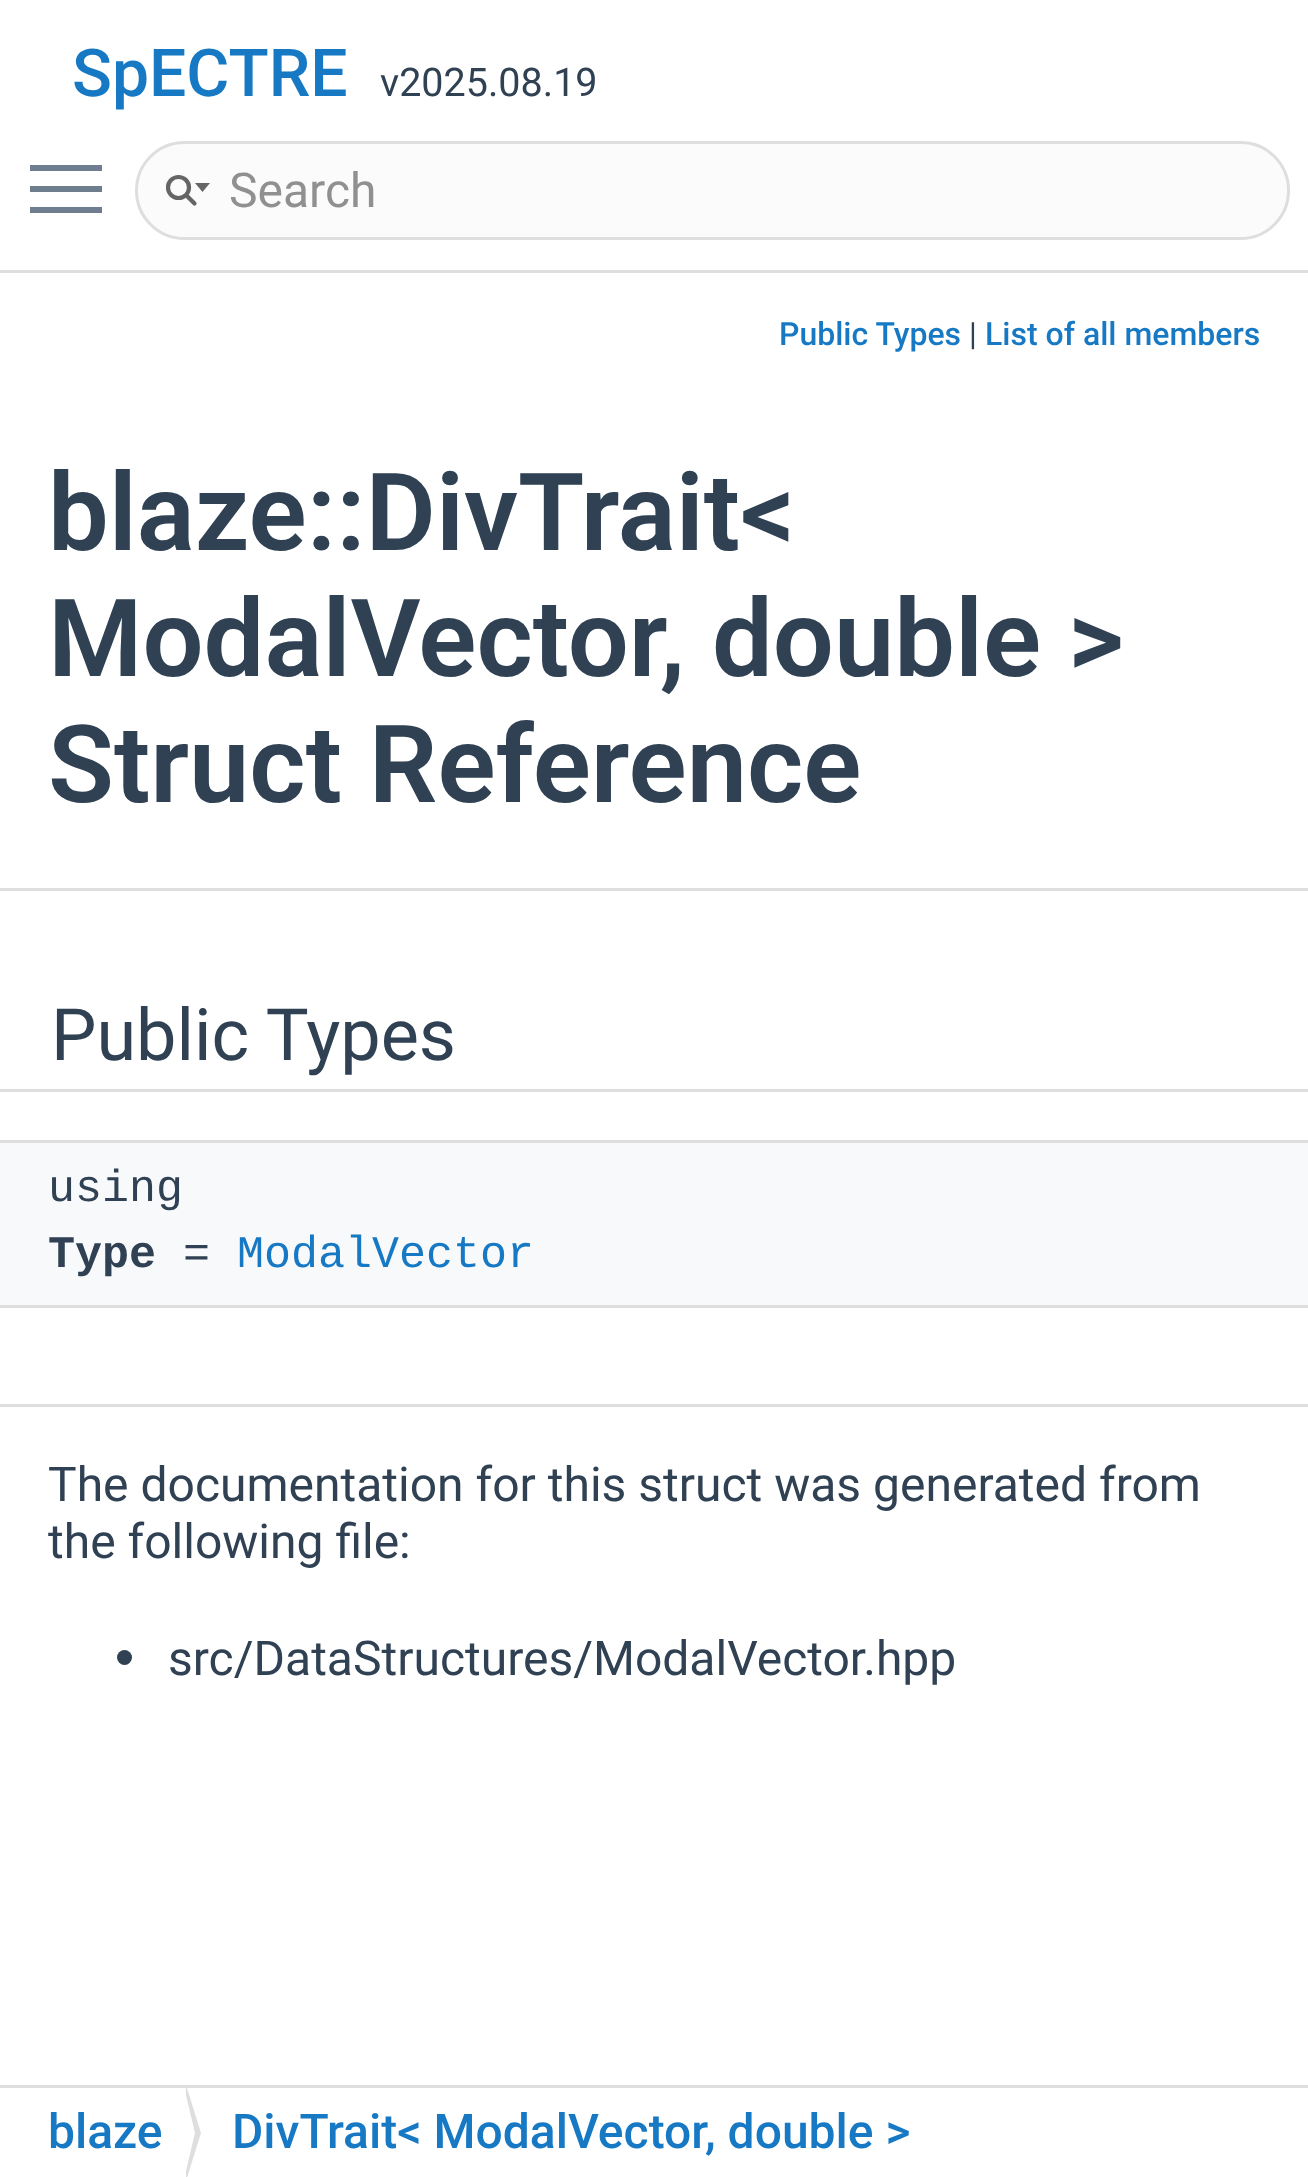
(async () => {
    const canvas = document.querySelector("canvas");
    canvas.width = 1308;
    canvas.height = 2177;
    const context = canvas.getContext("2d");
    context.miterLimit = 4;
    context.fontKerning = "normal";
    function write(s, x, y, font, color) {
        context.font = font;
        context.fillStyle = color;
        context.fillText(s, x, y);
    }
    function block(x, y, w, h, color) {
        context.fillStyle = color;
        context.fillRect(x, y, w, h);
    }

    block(0, 0, 1308, 2177, "rgb(255, 255, 255)");
    block(0, 270, 1308, 3, "rgb(222, 222, 222)");
    write("SpECTRE", 72, 96, "500 66px Roboto", "rgb(23, 121, 196)");
    write("v2025.08.19", 380, 96, "39.5px Roboto", "rgb(47, 65, 83)");
    block(30, 186, 72, 6, "rgb(111, 126, 142)");
    block(30, 165, 72, 6, "rgb(111, 126, 142)");
    block(30, 207, 72, 6, "rgb(111, 126, 142)");
    context.fillStyle = "rgb(251, 251, 251)";
    context.beginPath();
    context.roundRect(136.5, 142.5, 1152, 96, 48);
    context.fill();
    context.strokeStyle = "rgb(222, 222, 222)";
    context.lineWidth = 3;
    context.stroke();
    context.beginPath();
    context.arc(178.5, 187.5, 10.5, 0, Math.PI * 2);
    context.strokeStyle = "rgb(101, 101, 101)";
    context.lineWidth = 4.2;
    context.stroke();
    context.fillStyle = "rgb(101, 101, 101)";
    context.beginPath();
    context.moveTo(195, 183);
    context.lineTo(202.5, 192);
    context.lineTo(210, 183);
    context.closePath();
    context.fill();
    context.beginPath();
    context.moveTo(186.5, 195.5);
    context.lineTo(194.5, 203.5);
    context.lineCap = "round";
    context.stroke();
    write("Search", 229, 207, "48px Roboto", "rgb(144, 144, 144)");
    block(0, 888, 1308, 3, "rgb(222, 222, 222)");
    write("Public Types", 779, 345, "500 32px Roboto", "rgb(23, 121, 196)");
    write("|", 969, 345, "32px Roboto", "rgb(47, 65, 83)");
    write("List of all members", 985, 345, "500 32px Roboto", "rgb(23, 121, 196)");
    write("blaze::DivTrait<", 48, 550, "600 108px Roboto", "rgb(47, 65, 83)");
    write("ModalVector, double >", 48, 676, "600 108px Roboto", "rgb(47, 65, 83)");
    write("Struct Reference", 48, 802, "600 108px Roboto", "rgb(47, 65, 83)");
    context.fillStyle = "rgb(222, 222, 222)";
    context.beginPath();
    context.moveTo(-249, 972);
    context.lineTo(-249, 1092);
    context.lineTo(957, 1092);
    context.lineTo(957, 1089);
    context.lineTo(51, 1089);
    context.lineTo(51, 972);
    context.closePath();
    context.fill();
    context.beginPath();
    context.moveTo(351, 1089);
    context.lineTo(351, 1092);
    context.lineTo(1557, 1092);
    context.lineTo(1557, 972);
    context.lineTo(1257, 972);
    context.lineTo(1257, 1089);
    context.closePath();
    context.fill();
    block(0, 972, 51, 117, "rgb(255, 255, 255)");
    block(1257, 972, 51, 117, "rgb(255, 255, 255)");
    write("Public Types", 51, 1060, "72px Roboto", "rgb(47, 65, 83)");
    block(0, 1143, 1308, 162, "rgb(248, 249, 250)");
    block(0, 1140, 1308, 3, "rgb(222, 222, 222)");
    write("using", 48, 1201, "45px Liberation Mono", "rgb(47, 65, 83)");
    block(0, 1305, 1308, 3, "rgb(222, 222, 222)");
    write("Type", 48, 1267, "bold 45px Liberation Mono", "rgb(47, 65, 83)");
    write("=", 183, 1267, "45px Liberation Mono", "rgb(47, 65, 83)");
    write("ModalVector", 237, 1267, "45px Liberation Mono", "rgb(23, 121, 196)");
    block(0, 1404, 48, 3, "rgb(222, 222, 222)");
    block(48, 1404, 1260, 3, "rgb(222, 222, 222)");
    write("The documentation for this struct was generated from", 48, 1501, "48px Roboto", "rgb(47, 65, 83)");
    write("the following file:", 48, 1558, "48px Roboto", "rgb(47, 65, 83)");
    context.beginPath();
    context.arc(124.5, 1657.5, 7.5, 0, Math.PI * 2);
    context.fill();
    write("src/DataStructures/ModalVector.hpp", 168, 1675, "48px Roboto", "rgb(47, 65, 83)");
    block(0, 2085, 1308, 3, "rgb(222, 222, 222)");
    write("blaze", 48, 2148, "500 48px Roboto", "rgb(23, 121, 196)");
    context.save();
    context.beginPath();
    context.rect(0, 2088, 1308, 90);
    context.clip();
    context.fillStyle = "rgb(222, 222, 222)";
    context.beginPath();
    context.moveTo(186, 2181);
    context.lineTo(186, 2085);
    context.lineTo(201, 2133);
    context.closePath();
    context.fill();
    context.fillStyle = "rgb(255, 255, 255)";
    context.beginPath();
    context.moveTo(180, 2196);
    context.lineTo(180, 2070);
    context.lineTo(195, 2133);
    context.closePath();
    context.fill();
    context.restore();
    write("DivTrait< ModalVector, double >", 232, 2148, "500 48px Roboto", "rgb(23, 121, 196)");
})();
